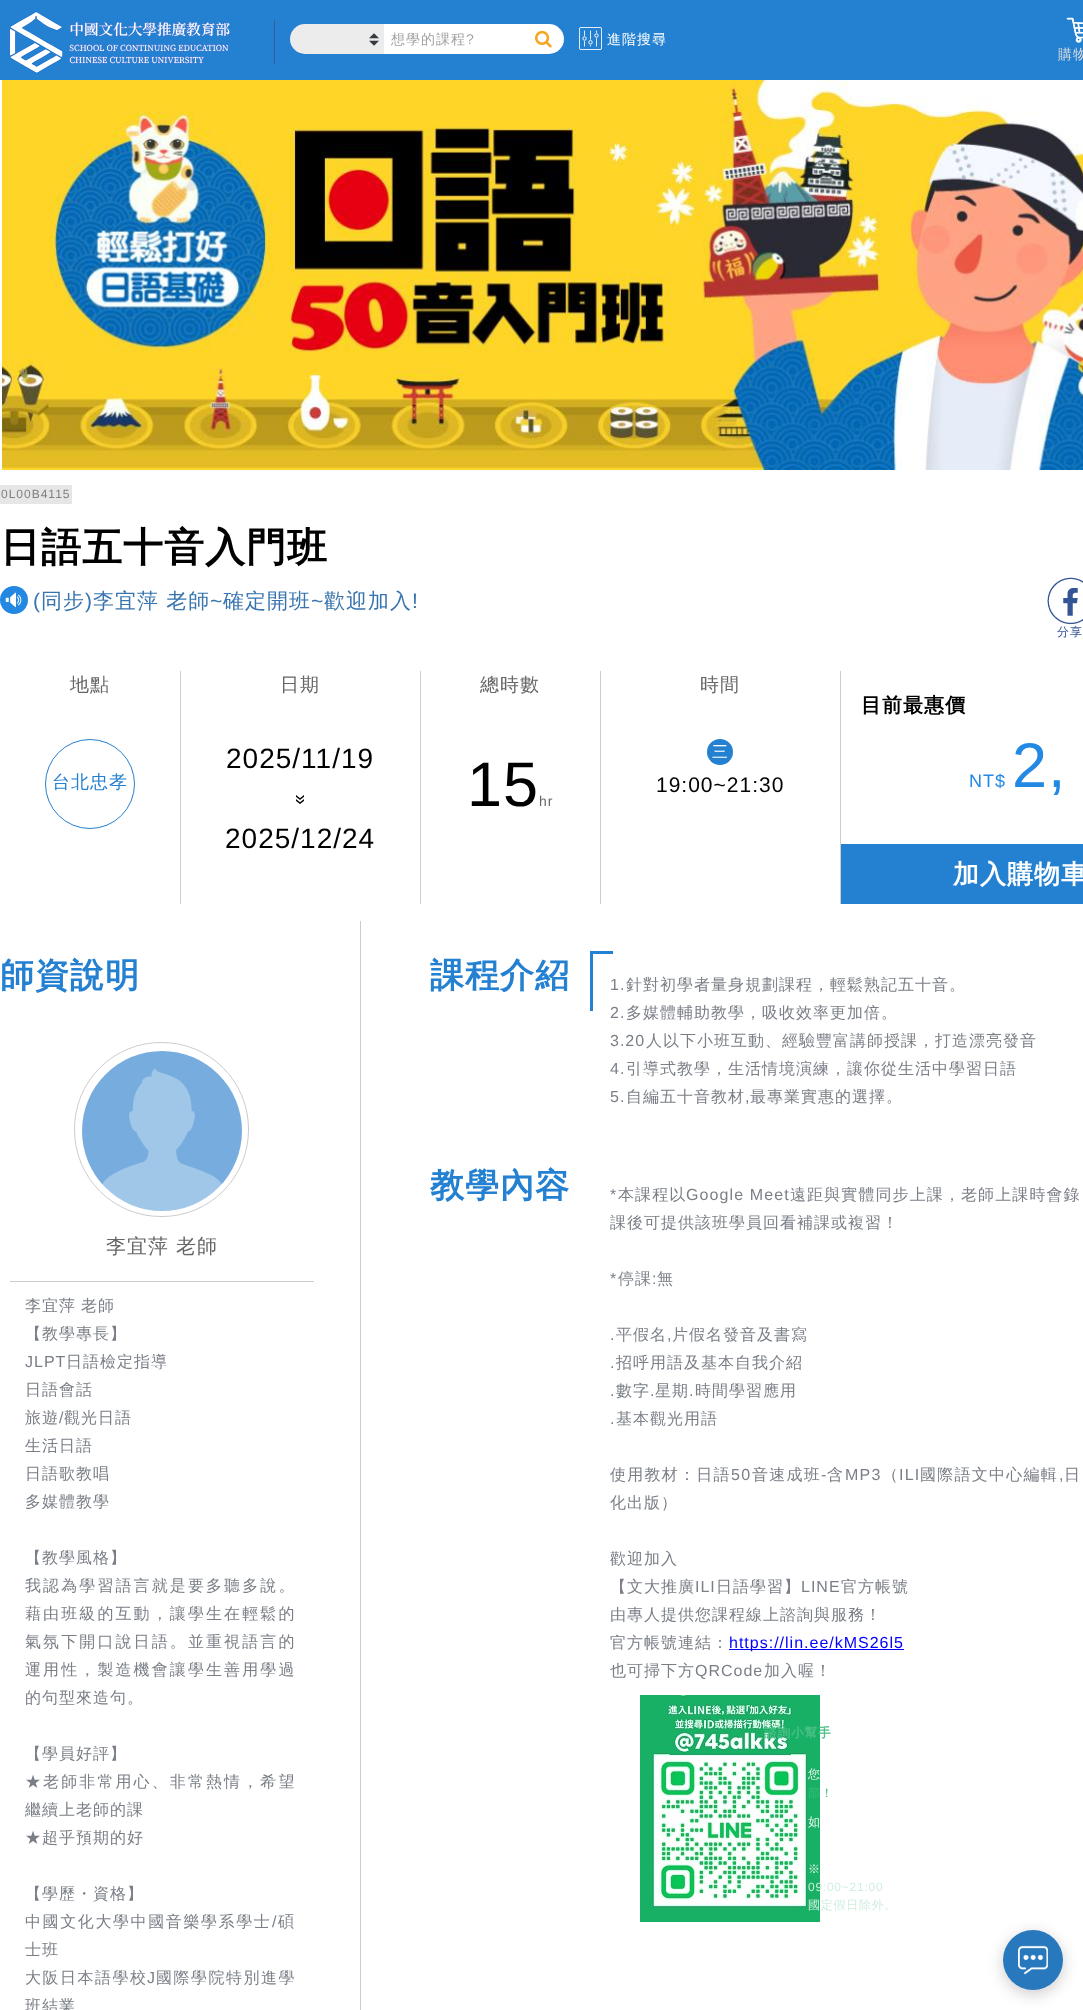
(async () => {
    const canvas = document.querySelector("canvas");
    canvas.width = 1083;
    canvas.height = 2010;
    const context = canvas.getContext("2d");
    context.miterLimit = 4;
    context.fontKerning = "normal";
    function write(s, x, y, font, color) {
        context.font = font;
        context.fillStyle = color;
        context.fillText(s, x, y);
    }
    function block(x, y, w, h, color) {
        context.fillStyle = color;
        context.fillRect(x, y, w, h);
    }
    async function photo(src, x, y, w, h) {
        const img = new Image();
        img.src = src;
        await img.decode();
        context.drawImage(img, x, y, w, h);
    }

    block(0, 0, 1083, 2010, "rgb(255, 255, 255)");
    block(0, 0, 1083, 80, "rgb(36, 128, 209)");
    await photo("media/1.png", 9, 11, 221, 63);
    block(274, 20, 1, 44, "rgb(55, 95, 147)");
    context.fillStyle = "rgb(236, 236, 236)";
    context.beginPath();
    context.roundRect(290, 24, 94, 30, [15, 0, 0, 15]);
    context.fill();
    await photo("media/2.png", 369, 33, 10, 13);
    context.fillStyle = "rgb(255, 255, 255)";
    context.beginPath();
    context.roundRect(384, 24, 180, 30, [0, 15, 15, 0]);
    context.fill();
    context.letterSpacing = "1px";
    write("想學的課程", 391, 44, "500 14px WenQuanYi Zen Hei", "rgb(162, 162, 162)");
    write("?", 466, 44, "14px Liberation Sans", "rgb(162, 162, 162)");
    await photo("media/3.png", 535, 30, 17, 18);
    await photo("media/4.png", 579, 27, 23, 23);
    write("進階搜尋", 607, 44, "500 14px WenQuanYi Zen Hei", "rgb(255, 255, 255)");
    await photo("media/5.png", 1066, 17, 17, 26);
    write("購物", 1058, 59, "500 14px WenQuanYi Zen Hei", "rgb(218, 219, 219)");
    await photo("media/6.png", 2, 80, 1081, 390);
    block(0, 485, 72, 19, "rgb(230, 230, 230)");
    write("0L00B4115", 1, 498, "12px Liberation Sans", "rgb(128, 128, 128)");
    write("日語五十音入門班", 0, 561, "bold 40px WenQuanYi Zen Hei", "rgb(0, 0, 0)");
    await photo("media/7.png", 0, 586, 28, 28);
    write("(", 33, 608, "21px Liberation Sans", "rgb(56, 116, 174)");
    write("同步", 41, 608, "500 21px WenQuanYi Zen Hei", "rgb(56, 116, 174)");
    write(")", 85, 608, "21px Liberation Sans", "rgb(56, 116, 174)");
    write("李宜萍 老師", 93, 608, "500 21px WenQuanYi Zen Hei", "rgb(56, 116, 174)");
    write("~", 210, 608, "21px Liberation Sans", "rgb(56, 116, 174)");
    write("確定開班", 223, 608, "500 21px WenQuanYi Zen Hei", "rgb(56, 116, 174)");
    write("~", 311, 608, "21px Liberation Sans", "rgb(56, 116, 174)");
    write("歡迎加入", 324, 608, "500 21px WenQuanYi Zen Hei", "rgb(56, 116, 174)");
    write("!", 412, 608, "21px Liberation Sans", "rgb(56, 116, 174)");
    await photo("media/8.png", 1047, 577, 36, 47);
    write("分享", 1057, 636, "500 12px WenQuanYi Zen Hei", "rgb(52, 85, 149)");
    block(180, 671, 1, 233, "rgb(204, 204, 204)");
    write("地點", 70, 691, "500 19px WenQuanYi Zen Hei", "rgb(102, 102, 102)");
    context.beginPath();
    context.arc(90, 784, 44.5, 0, Math.PI * 2);
    context.strokeStyle = "rgb(36, 128, 209)";
    context.stroke();
    write("台北忠孝", 52, 788, "500 18px WenQuanYi Zen Hei", "rgb(36, 128, 209)");
    block(420, 671, 1, 233, "rgb(204, 204, 204)");
    write("日期", 280, 691, "500 19px WenQuanYi Zen Hei", "rgb(102, 102, 102)");
    write("2025/11/19", 226, 768, "28px Liberation Sans", "rgb(0, 0, 0)");
    await photo("media/9.png", 296, 795, 8, 9);
    write("2025/12/24", 225, 848, "28px Liberation Sans", "rgb(0, 0, 0)");
    block(600, 671, 1, 233, "rgb(204, 204, 204)");
    write("總時數", 480, 691, "500 19px WenQuanYi Zen Hei", "rgb(102, 102, 102)");
    write("15", 467, 806, "63px Liberation Sans", "rgb(0, 0, 0)");
    write("hr", 539, 806, "14px Liberation Sans", "rgb(102, 102, 102)");
    block(840, 671, 1, 233, "rgb(204, 204, 204)");
    write("時間", 700, 691, "500 19px WenQuanYi Zen Hei", "rgb(102, 102, 102)");
    context.fillStyle = "rgb(36, 128, 209)";
    context.beginPath();
    context.arc(720, 752, 13, 0, Math.PI * 2);
    context.fill();
    write("三", 712, 757, "500 16px WenQuanYi Zen Hei", "rgb(255, 255, 255)");
    write("19:00~21:30", 656, 792, "21px Liberation Sans", "rgb(0, 0, 0)");
    write("目前最惠價", 861, 712, "bold 20px WenQuanYi Zen Hei", "rgb(0, 0, 0)");
    write("NT$", 969, 787, "18px Liberation Sans", "rgb(36, 137, 226)");
    write("2,", 1012, 787, "63px Liberation Sans", "rgb(36, 137, 226)");
    block(841, 844, 242, 60, "rgb(36, 128, 209)");
    write("加入購物車", 953, 883, "bold 26px WenQuanYi Zen Hei", "rgb(255, 255, 255)");
    write("師資說明", 0, 987, "bold 34px WenQuanYi Zen Hei", "rgb(36, 128, 209)");
    context.beginPath();
    context.roundRect(74.5, 1042.5, 174, 174, 86.5);
    context.strokeStyle = "rgb(204, 204, 204)";
    context.stroke();
    await photo("media/10.png", 82, 1051, 160, 160);
    block(10, 1281, 304, 1, "rgb(204, 204, 204)");
    write("李宜萍 老師", 106, 1253, "500 20px WenQuanYi Zen Hei", "rgb(102, 102, 102)");
    write("李宜萍", 25, 1311, "500 16px WenQuanYi Zen Hei", "rgb(122, 127, 135)");
    write("老師", 81, 1311, "500 16px WenQuanYi Zen Hei", "rgb(122, 127, 135)");
    write("【教學專長】", 25, 1339, "500 16px WenQuanYi Zen Hei", "rgb(122, 127, 135)");
    write("JLPT", 25, 1367, "16px Liberation Sans", "rgb(122, 127, 135)");
    write("日語檢定指導", 66, 1367, "500 16px WenQuanYi Zen Hei", "rgb(122, 127, 135)");
    write("日語會話", 25, 1395, "500 16px WenQuanYi Zen Hei", "rgb(122, 127, 135)");
    write("旅遊", 25, 1423, "500 16px WenQuanYi Zen Hei", "rgb(122, 127, 135)");
    write("/", 59, 1423, "16px Liberation Sans", "rgb(122, 127, 135)");
    write("觀光日語", 64, 1423, "500 16px WenQuanYi Zen Hei", "rgb(122, 127, 135)");
    write("生活日語", 25, 1451, "500 16px WenQuanYi Zen Hei", "rgb(122, 127, 135)");
    write("日語歌教唱", 25, 1479, "500 16px WenQuanYi Zen Hei", "rgb(122, 127, 135)");
    write("多媒體教學", 25, 1507, "500 16px WenQuanYi Zen Hei", "rgb(122, 127, 135)");
    write("【教學風格】", 25, 1563, "500 16px WenQuanYi Zen Hei", "rgb(122, 127, 135)");
    context.letterSpacing = "2.1px";
    write("我認為學習語言就是要多聽多說。", 25, 1591, "500 16px WenQuanYi Zen Hei", "rgb(122, 127, 135)");
    write("藉由班級的互動，讓學生在輕鬆的", 25, 1619, "500 16px WenQuanYi Zen Hei", "rgb(122, 127, 135)");
    write("氣氛下開口說日語。並重視語言的", 25, 1647, "500 16px WenQuanYi Zen Hei", "rgb(122, 127, 135)");
    write("運用性，製造機會讓學生善用學過", 25, 1675, "500 16px WenQuanYi Zen Hei", "rgb(122, 127, 135)");
    context.letterSpacing = "1px";
    write("的句型來造句。", 25, 1703, "500 16px WenQuanYi Zen Hei", "rgb(122, 127, 135)");
    write("【學員好評】", 25, 1759, "500 16px WenQuanYi Zen Hei", "rgb(122, 127, 135)");
    context.letterSpacing = "2.1px";
    write("★老師非常用心、非常熱情，希望", 25, 1787, "500 16px WenQuanYi Zen Hei", "rgb(122, 127, 135)");
    context.letterSpacing = "1px";
    write("繼續上老師的課", 25, 1815, "500 16px WenQuanYi Zen Hei", "rgb(122, 127, 135)");
    write("★超乎預期的好", 25, 1843, "500 16px WenQuanYi Zen Hei", "rgb(122, 127, 135)");
    write("【學歷・資格】", 25, 1899, "500 16px WenQuanYi Zen Hei", "rgb(122, 127, 135)");
    context.letterSpacing = "1.6px";
    write("中國文化大學中國音樂學系學士", 25, 1927, "500 16px WenQuanYi Zen Hei", "rgb(122, 127, 135)");
    write("/", 272, 1927, "16px Liberation Sans", "rgb(122, 127, 135)");
    write("碩", 278, 1927, "500 16px WenQuanYi Zen Hei", "rgb(122, 127, 135)");
    context.letterSpacing = "1px";
    write("士班", 25, 1955, "500 16px WenQuanYi Zen Hei", "rgb(122, 127, 135)");
    context.letterSpacing = "1.5px";
    write("大阪日本語學校", 25, 1983, "500 16px WenQuanYi Zen Hei", "rgb(122, 127, 135)");
    write("J", 147, 1983, "16px Liberation Sans", "rgb(122, 127, 135)");
    write("國際學院特別進學", 156, 1983, "500 16px WenQuanYi Zen Hei", "rgb(122, 127, 135)");
    context.letterSpacing = "1px";
    write("班結業", 25, 2011, "500 16px WenQuanYi Zen Hei", "rgb(122, 127, 135)");
    block(360, 921, 1, 1089, "rgb(204, 204, 204)");
    write("課程介紹", 430, 987, "bold 34px WenQuanYi Zen Hei", "rgb(36, 128, 209)");
    block(590, 951, 23, 3, "rgb(36, 128, 209)");
    block(590, 951, 3, 60, "rgb(36, 128, 209)");
    write("1.", 610, 990, "16px Liberation Sans", "rgb(122, 127, 135)");
    write("針對初學者量身規劃課程，輕鬆熟記五十音。", 626, 990, "500 16px WenQuanYi Zen Hei", "rgb(122, 127, 135)");
    write("2.", 610, 1018, "16px Liberation Sans", "rgb(122, 127, 135)");
    write("多媒體輔助教學，吸收效率更加倍。", 626, 1018, "500 16px WenQuanYi Zen Hei", "rgb(122, 127, 135)");
    write("3.20", 610, 1046, "16px Liberation Sans", "rgb(122, 127, 135)");
    write("人以下小班互動、經驗豐富講師授課，打造漂亮發音", 646, 1046, "500 16px WenQuanYi Zen Hei", "rgb(122, 127, 135)");
    write("4.", 610, 1074, "16px Liberation Sans", "rgb(122, 127, 135)");
    write("引導式教學，生活情境演練，讓你從生活中學習日語", 626, 1074, "500 16px WenQuanYi Zen Hei", "rgb(122, 127, 135)");
    write("5.", 610, 1102, "16px Liberation Sans", "rgb(122, 127, 135)");
    write("自編五十音教材", 626, 1102, "500 16px WenQuanYi Zen Hei", "rgb(122, 127, 135)");
    write(",", 745, 1102, "16px Liberation Sans", "rgb(122, 127, 135)");
    write("最專業實惠的選擇。", 750, 1102, "500 16px WenQuanYi Zen Hei", "rgb(122, 127, 135)");
    write("教學內容", 430, 1197, "bold 34px WenQuanYi Zen Hei", "rgb(36, 128, 209)");
    context.letterSpacing = "1.1px";
    write("*", 610, 1200, "16px Liberation Sans", "rgb(122, 127, 135)");
    write("本課程以", 618, 1200, "500 16px WenQuanYi Zen Hei", "rgb(122, 127, 135)");
    write("Google Meet", 686, 1200, "16px Liberation Sans", "rgb(122, 127, 135)");
    write("遠距與實體同步上課，老師上課時會錄", 790, 1200, "500 16px WenQuanYi Zen Hei", "rgb(122, 127, 135)");
    context.letterSpacing = "1px";
    write("課後可提供該班學員回看補課或複習！", 610, 1228, "500 16px WenQuanYi Zen Hei", "rgb(122, 127, 135)");
    write("*", 610, 1284, "16px Liberation Sans", "rgb(122, 127, 135)");
    write("停課", 618, 1284, "500 16px WenQuanYi Zen Hei", "rgb(122, 127, 135)");
    write(":", 652, 1284, "16px Liberation Sans", "rgb(122, 127, 135)");
    write("無", 657, 1284, "500 16px WenQuanYi Zen Hei", "rgb(122, 127, 135)");
    write(".", 610, 1340, "16px Liberation Sans", "rgb(122, 127, 135)");
    write("平假名", 616, 1340, "500 16px WenQuanYi Zen Hei", "rgb(122, 127, 135)");
    write(",", 667, 1340, "16px Liberation Sans", "rgb(122, 127, 135)");
    write("片假名發音及書寫", 672, 1340, "500 16px WenQuanYi Zen Hei", "rgb(122, 127, 135)");
    write(".", 610, 1368, "16px Liberation Sans", "rgb(122, 127, 135)");
    write("招呼用語及基本自我介紹", 616, 1368, "500 16px WenQuanYi Zen Hei", "rgb(122, 127, 135)");
    write(".", 610, 1396, "16px Liberation Sans", "rgb(122, 127, 135)");
    write("數字", 616, 1396, "500 16px WenQuanYi Zen Hei", "rgb(122, 127, 135)");
    write(".", 650, 1396, "16px Liberation Sans", "rgb(122, 127, 135)");
    write("星期", 655, 1396, "500 16px WenQuanYi Zen Hei", "rgb(122, 127, 135)");
    write(".", 689, 1396, "16px Liberation Sans", "rgb(122, 127, 135)");
    write("時間學習應用", 695, 1396, "500 16px WenQuanYi Zen Hei", "rgb(122, 127, 135)");
    write(".", 610, 1424, "16px Liberation Sans", "rgb(122, 127, 135)");
    write("基本觀光用語", 616, 1424, "500 16px WenQuanYi Zen Hei", "rgb(122, 127, 135)");
    context.letterSpacing = "1.25px";
    write("使用教材：日語", 610, 1480, "500 16px WenQuanYi Zen Hei", "rgb(122, 127, 135)");
    write("50", 731, 1480, "16px Liberation Sans", "rgb(122, 127, 135)");
    write("音速成班", 752, 1480, "500 16px WenQuanYi Zen Hei", "rgb(122, 127, 135)");
    write("-", 821, 1480, "16px Liberation Sans", "rgb(122, 127, 135)");
    write("含", 827, 1480, "500 16px WenQuanYi Zen Hei", "rgb(122, 127, 135)");
    write("MP3", 845, 1480, "16px Liberation Sans", "rgb(122, 127, 135)");
    write("（", 882, 1480, "500 16px WenQuanYi Zen Hei", "rgb(122, 127, 135)");
    write("ILI", 899, 1480, "16px Liberation Sans", "rgb(122, 127, 135)");
    write("國際語文中心編輯", 920, 1480, "500 16px WenQuanYi Zen Hei", "rgb(122, 127, 135)");
    write("日", 1064, 1480, "500 16px WenQuanYi Zen Hei", "rgb(122, 127, 135)");
    write(",", 1059, 1480, "16px Liberation Sans", "rgb(122, 127, 135)");
    context.letterSpacing = "1px";
    write("化出版）", 610, 1508, "500 16px WenQuanYi Zen Hei", "rgb(122, 127, 135)");
    write("歡迎加入", 610, 1564, "500 16px WenQuanYi Zen Hei", "rgb(122, 127, 135)");
    write("【文大推廣", 610, 1592, "500 16px WenQuanYi Zen Hei", "rgb(122, 127, 135)");
    write("ILI", 695, 1592, "16px Liberation Sans", "rgb(122, 127, 135)");
    write("日語學習】", 716, 1592, "500 16px WenQuanYi Zen Hei", "rgb(122, 127, 135)");
    write("LINE", 801, 1592, "16px Liberation Sans", "rgb(122, 127, 135)");
    write("官方帳號", 841, 1592, "500 16px WenQuanYi Zen Hei", "rgb(122, 127, 135)");
    write("由專人提供您課程線上諮詢與服務！", 610, 1620, "500 16px WenQuanYi Zen Hei", "rgb(122, 127, 135)");
    write("官方帳號連結：", 610, 1648, "500 16px WenQuanYi Zen Hei", "rgb(122, 127, 135)");
    block(729, 1649, 175, 1, "rgb(0, 0, 255)");
    write("https://lin.ee/kMS26l5", 729, 1648, "16px Liberation Sans", "rgb(0, 0, 255)");
    write("也可掃下方", 610, 1676, "500 16px WenQuanYi Zen Hei", "rgb(122, 127, 135)");
    write("QRCode", 695, 1676, "16px Liberation Sans", "rgb(122, 127, 135)");
    write("加入喔！", 764, 1676, "500 16px WenQuanYi Zen Hei", "rgb(122, 127, 135)");
    await photo("media/11.png", 640, 1695, 180, 227);
    context.letterSpacing = "0.75px";
    write("諮詢小幫手", 764, 1737, "bold 12.75px WenQuanYi Zen Hei", "rgb(76, 192, 136)");
    write("您", 808, 1778, "500 12px WenQuanYi Zen Hei", "rgb(239, 249, 244)");
    write("部！", 808, 1797, "500 12px WenQuanYi Zen Hei", "rgb(58, 188, 124)");
    write("如", 808, 1826, "500 12px WenQuanYi Zen Hei", "rgb(239, 249, 244)");
    write("※", 808, 1873, "500 12px WenQuanYi Zen Hei", "rgb(239, 249, 244)");
    write("09:00~21:00", 808, 1891, "12px Liberation Sans", "rgb(207, 238, 223)");
    write("國定假日除外。", 808, 1909, "500 12px WenQuanYi Zen Hei", "rgb(207, 238, 223)");
    context.fillStyle = "rgba(0, 0, 0, 0.2)";
    context.filter = "blur(7.5px)";
    context.beginPath();
    context.roundRect(1003, 1934, 60, 60, 30);
    context.fill();
    context.filter = "none";
    context.fillStyle = "rgb(40, 120, 190)";
    context.beginPath();
    context.arc(1033, 1960, 30, 0, Math.PI * 2);
    context.fill();
    await photo("media/12.png", 1018, 1945, 30, 30);
})();
